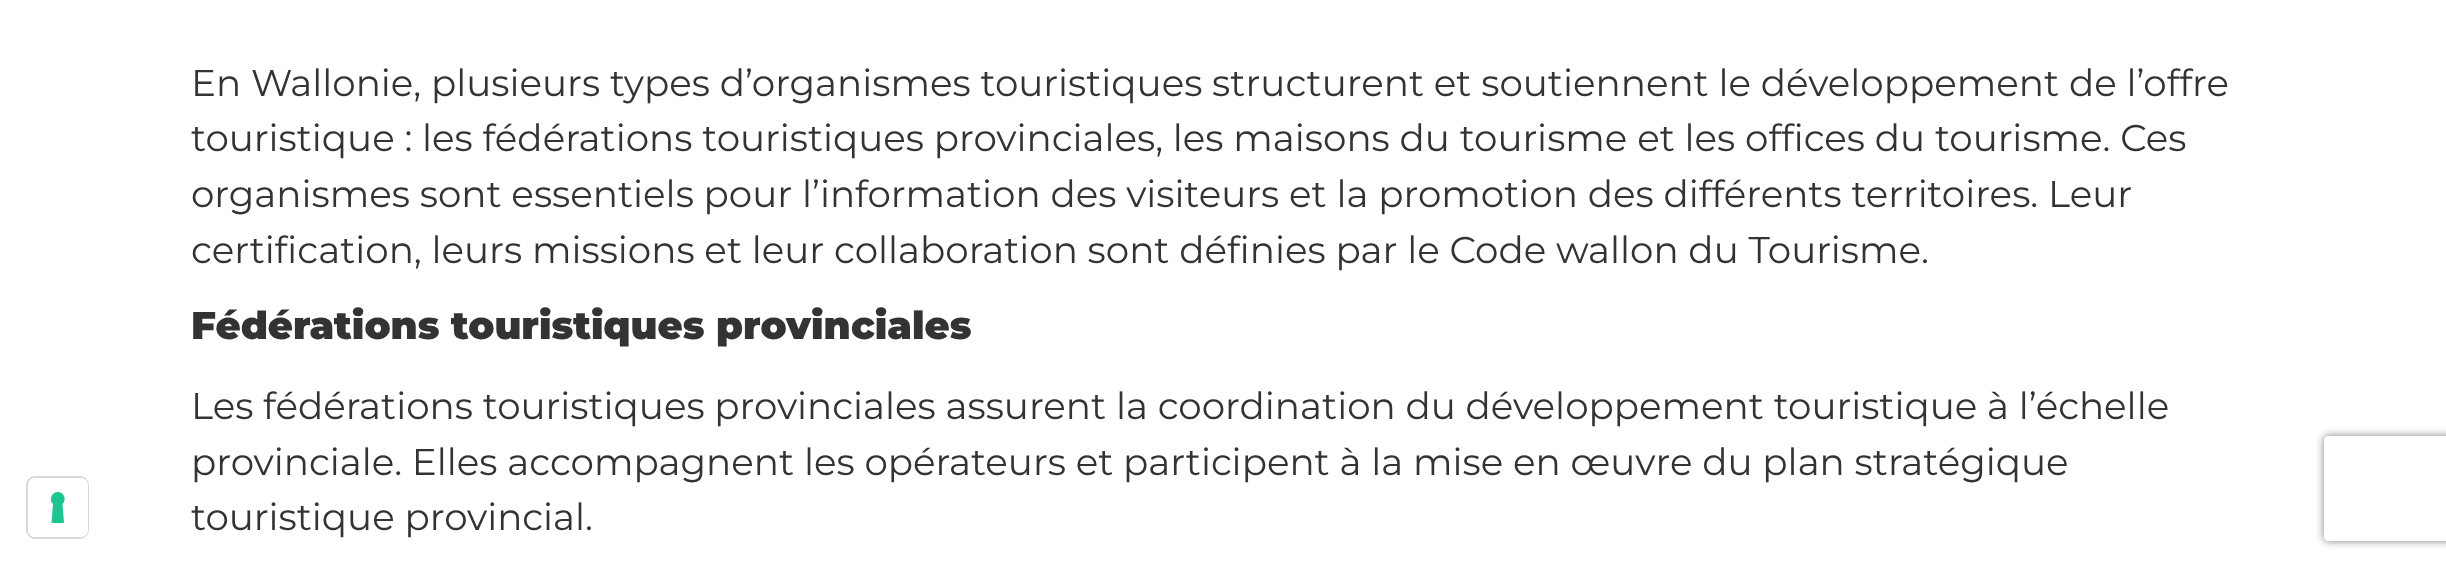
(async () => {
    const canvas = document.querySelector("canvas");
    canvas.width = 2446;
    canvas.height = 565;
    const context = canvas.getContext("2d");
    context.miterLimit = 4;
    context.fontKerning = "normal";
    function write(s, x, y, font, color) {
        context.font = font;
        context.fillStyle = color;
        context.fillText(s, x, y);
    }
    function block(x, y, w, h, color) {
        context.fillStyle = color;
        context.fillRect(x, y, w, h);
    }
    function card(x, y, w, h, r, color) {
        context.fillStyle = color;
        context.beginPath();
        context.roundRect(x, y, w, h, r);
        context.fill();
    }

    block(0, 0, 2446, 565, "rgb(255, 255, 255)");
    context.beginPath();
    context.roundRect(27, 477, 61, 61, 8);
    context.strokeStyle = "rgb(217, 217, 217)";
    context.lineWidth = 2;
    context.stroke();
    card(28, 478, 60, 59, 7, "rgb(255, 255, 255)");
    context.fillStyle = "rgb(28, 198, 145)";
    context.beginPath();
    context.moveTo(58, 492);
    context.bezierCurveTo(64, 492, 67, 500, 62.5, 504);
    context.lineTo(64, 523);
    context.lineTo(51.5, 523);
    context.lineTo(53, 504);
    context.bezierCurveTo(48.5, 500, 51.5, 492, 58, 492);
    context.closePath();
    context.fill("evenodd");
    write("En Wallonie, plusieurs types d’organismes touristiques structurent et soutiennent le développement de l’offre", 191, 96, "37.27px Montserrat", "rgb(51, 51, 51)");
    write("touristique : les fédérations touristiques provinciales, les maisons du tourisme et les offices du tourisme. Ces", 191, 151, "37.27px Montserrat", "rgb(51, 51, 51)");
    write("organismes sont essentiels pour l’information des visiteurs et la promotion des différents territoires. Leur", 191, 207, "37.27px Montserrat", "rgb(51, 51, 51)");
    write("certification, leurs missions et leur collaboration sont définies par le Code wallon du Tourisme.", 191, 263, "37.27px Montserrat", "rgb(51, 51, 51)");
    write("Fédérations touristiques provinciales", 191, 339, "900 38.6px Montserrat", "rgb(51, 51, 51)");
    write("Les fédérations touristiques provinciales assurent la coordination du développement touristique à l’échelle", 191, 419, "37.27px Montserrat", "rgb(51, 51, 51)");
    write("provinciale. Elles accompagnent les opérateurs et participent à la mise en œuvre du plan stratégique", 191, 475, "37.27px Montserrat", "rgb(51, 51, 51)");
    write("touristique provincial.", 191, 530, "37.27px Montserrat", "rgb(51, 51, 51)");
    context.save();
    context.beginPath();
    context.moveTo(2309, 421);
    context.lineTo(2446, 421);
    context.lineTo(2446, 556);
    context.lineTo(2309, 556);
    context.closePath();
    context.moveTo(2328, 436);
    context.lineTo(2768, 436);
    context.bezierCurveTo(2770, 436, 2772, 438, 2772, 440);
    context.lineTo(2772, 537);
    context.bezierCurveTo(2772, 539, 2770, 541, 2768, 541);
    context.lineTo(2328, 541);
    context.bezierCurveTo(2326, 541, 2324, 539, 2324, 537);
    context.lineTo(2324, 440);
    context.bezierCurveTo(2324, 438, 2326, 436, 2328, 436);
    context.closePath();
    context.clip("evenodd");
    context.fillStyle = "rgb(128, 128, 128)";
    context.filter = "blur(4.5px)";
    context.beginPath();
    context.roundRect(2324, 436, 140, 105, 4);
    context.fill();
    context.filter = "none";
    context.restore();
})();
